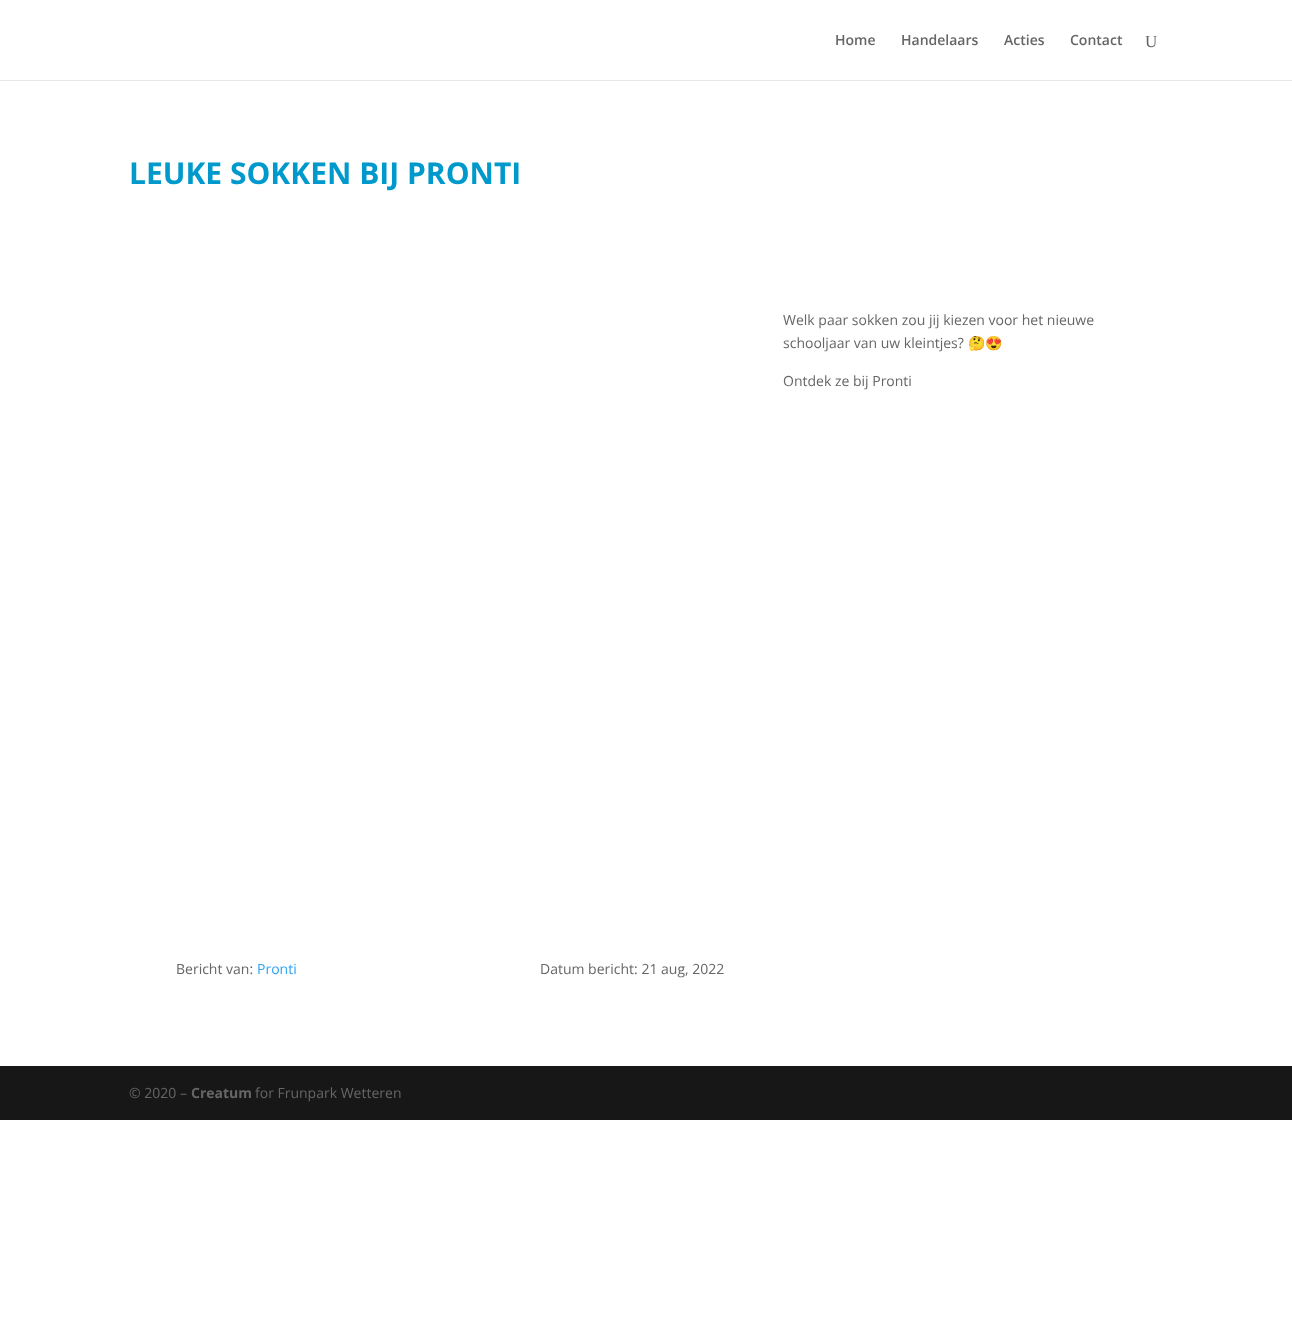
(async () => {
    const canvas = document.querySelector("canvas");
    canvas.width = 1292;
    canvas.height = 1339;
    const context = canvas.getContext("2d");
    context.miterLimit = 4;
    context.fontKerning = "normal";
    function write(s, x, y, font, color) {
        context.font = font;
        context.fillStyle = color;
        context.fillText(s, x, y);
    }
    function block(x, y, w, h, color) {
        context.fillStyle = color;
        context.fillRect(x, y, w, h);
    }

    block(0, 0, 1292, 1339, "rgb(255, 255, 255)");
    block(0, 80, 1292, 1, "rgb(230, 230, 230)");
    write("Home", 835, 45, "600 14px Open Sans", "rgb(102, 102, 102)");
    write("Handelaars", 901, 45, "600 14px Open Sans", "rgb(102, 102, 102)");
    write("Acties", 1004, 45, "600 14px Open Sans", "rgb(102, 102, 102)");
    write("Contact", 1070, 45, "600 14px Open Sans", "rgb(102, 102, 102)");
    write("U", 1145, 47, "17px Liberation Serif", "rgb(102, 102, 102)");
    write("LEUKE SOKKEN BIJ PRONTI", 129, 184, "bold 30px Open Sans", "rgb(0, 153, 204)");
    write("Welk paar sokken zou jij kiezen voor het nieuwe", 783, 325, "14px Open Sans", "rgb(102, 102, 102)");
    write("schooljaar van uw kleintjes?", 783, 348, "14px Open Sans", "rgb(102, 102, 102)");
    write("🤔😍", 968, 348, "14px Noto Color Emoji", "rgb(102, 102, 102)");
    write("Ontdek ze bij Pronti", 783, 386, "14px Open Sans", "rgb(102, 102, 102)");
    write("Bericht van:", 176, 974, "14px Open Sans", "rgb(102, 102, 102)");
    write("Pronti", 257, 974, "14px Open Sans", "rgb(46, 163, 242)");
    write("Datum bericht: 21 aug, 2022", 540, 974, "14px Open Sans", "rgb(102, 102, 102)");
    block(0, 1066, 1292, 54, "rgb(23, 23, 23)");
    write("© 2020 –", 129, 1098, "14px Open Sans", "rgb(102, 102, 102)");
    write("Creatum", 191, 1098, "bold 14px Open Sans", "rgb(102, 102, 102)");
    write("for Frunpark Wetteren", 255, 1098, "14px Open Sans", "rgb(102, 102, 102)");
})();
